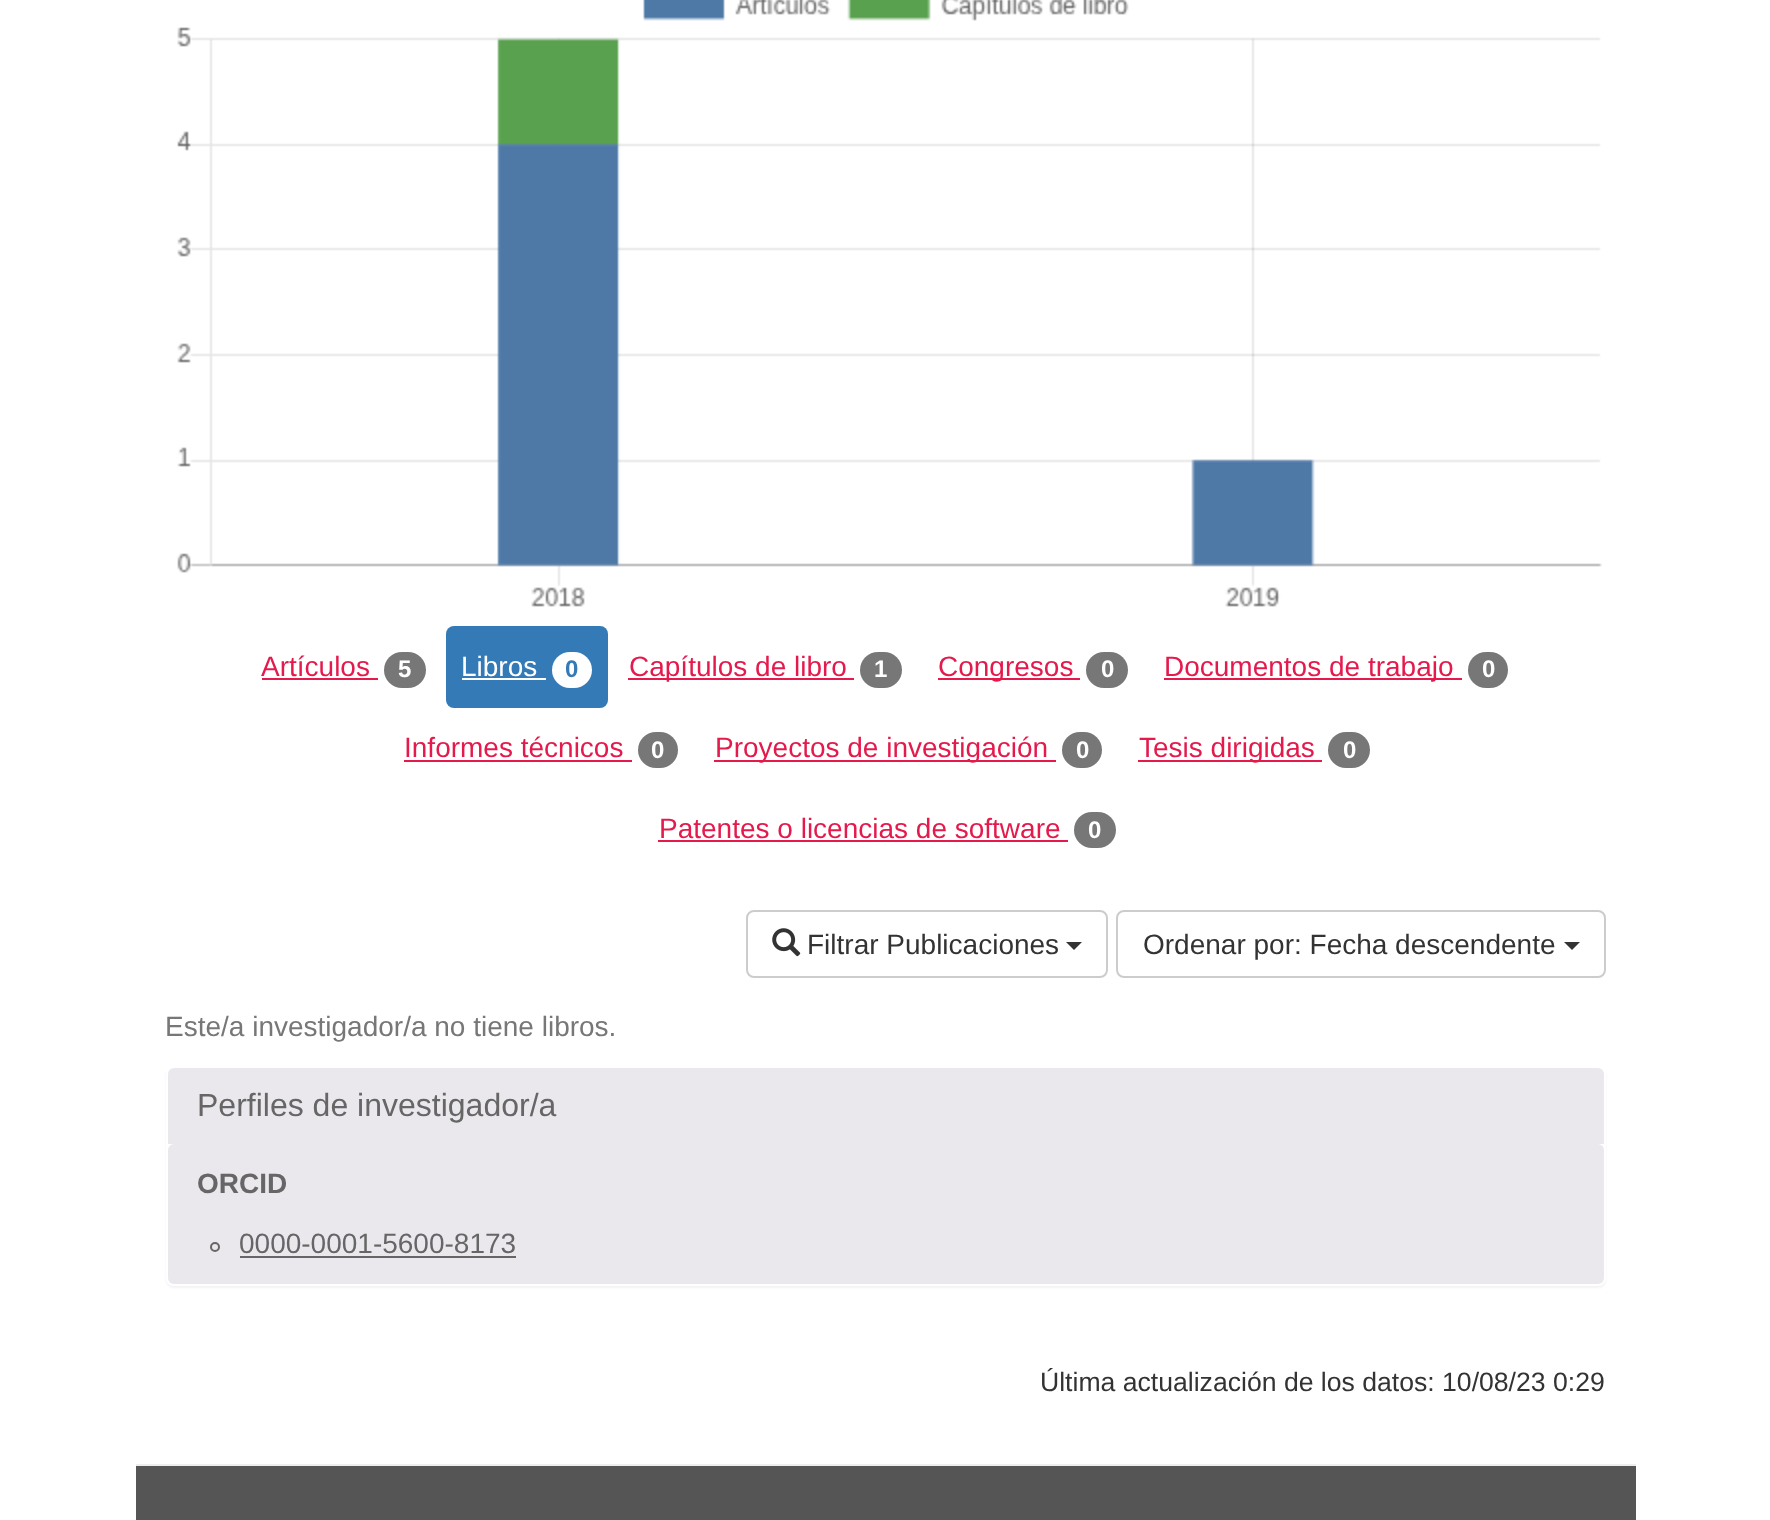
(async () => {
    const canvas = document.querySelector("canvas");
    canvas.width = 1770;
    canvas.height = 1520;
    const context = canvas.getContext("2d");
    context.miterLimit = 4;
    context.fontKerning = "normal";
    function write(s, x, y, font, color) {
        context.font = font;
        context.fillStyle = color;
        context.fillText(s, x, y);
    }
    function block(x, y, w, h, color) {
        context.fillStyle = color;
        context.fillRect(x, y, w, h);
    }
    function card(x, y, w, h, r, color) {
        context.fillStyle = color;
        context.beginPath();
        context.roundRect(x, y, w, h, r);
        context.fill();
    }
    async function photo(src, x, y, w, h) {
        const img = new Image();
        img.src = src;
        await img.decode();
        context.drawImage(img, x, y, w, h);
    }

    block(0, 0, 1770, 1520, "rgb(255, 255, 255)");
    await photo("media/1.png", 177, 0, 1425, 607);
    write("Artículos", 261, 676, "28px Liberation Sans", "rgb(229, 26, 76)");
    block(262, 678, 116, 2, "rgb(229, 26, 76)");
    card(384, 652, 42, 36, 18, "rgb(119, 119, 119)");
    write("5", 398, 677, "bold 24px Liberation Sans", "rgb(255, 255, 255)");
    card(446, 626, 162, 82, 8, "rgb(51, 122, 183)");
    write("Libros", 461, 676, "28px Liberation Sans", "rgb(255, 255, 255)");
    block(462, 678, 84, 2, "rgb(255, 255, 255)");
    card(552, 652, 40, 36, 18, "rgb(255, 255, 255)");
    write("0", 565, 677, "bold 24px Liberation Sans", "rgb(51, 122, 183)");
    block(628, 678, 226, 2, "rgb(229, 26, 76)");
    write("Capítulos de libro", 629, 676, "28px Liberation Sans", "rgb(229, 26, 76)");
    card(860, 652, 42, 36, 18, "rgb(119, 119, 119)");
    write("1", 874, 677, "bold 24px Liberation Sans", "rgb(255, 255, 255)");
    block(938, 678, 142, 2, "rgb(229, 26, 76)");
    write("Congresos", 938, 676, "28px Liberation Sans", "rgb(229, 26, 76)");
    card(1086, 652, 42, 36, 18, "rgb(119, 119, 119)");
    write("0", 1101, 677, "bold 24px Liberation Sans", "rgb(255, 255, 255)");
    block(1164, 678, 298, 2, "rgb(229, 26, 76)");
    write("Documentos de trabajo", 1164, 676, "28px Liberation Sans", "rgb(229, 26, 76)");
    card(1468, 652, 40, 36, 18, "rgb(119, 119, 119)");
    write("0", 1482, 677, "bold 24px Liberation Sans", "rgb(255, 255, 255)");
    write("Informes técnicos", 404, 757, "28px Liberation Sans", "rgb(229, 26, 76)");
    block(404, 760, 228, 2, "rgb(229, 26, 76)");
    card(638, 732, 40, 36, 18, "rgb(119, 119, 119)");
    write("0", 651, 758, "bold 24px Liberation Sans", "rgb(255, 255, 255)");
    block(714, 760, 342, 2, "rgb(229, 26, 76)");
    write("Proyectos de investigación", 715, 757, "28px Liberation Sans", "rgb(229, 26, 76)");
    card(1062, 732, 40, 36, 18, "rgb(119, 119, 119)");
    write("0", 1076, 758, "bold 24px Liberation Sans", "rgb(255, 255, 255)");
    block(1138, 760, 184, 2, "rgb(229, 26, 76)");
    write("Tesis dirigidas", 1139, 757, "28px Liberation Sans", "rgb(229, 26, 76)");
    card(1328, 732, 42, 36, 18, "rgb(119, 119, 119)");
    write("0", 1343, 758, "bold 24px Liberation Sans", "rgb(255, 255, 255)");
    write("Patentes o licencias de software", 659, 838, "28px Liberation Sans", "rgb(229, 26, 76)");
    block(658, 840, 410, 2, "rgb(229, 26, 76)");
    card(1074, 812, 42, 36, 18, "rgb(119, 119, 119)");
    write("0", 1088, 838, "bold 24px Liberation Sans", "rgb(255, 255, 255)");
    context.beginPath();
    context.roundRect(747, 911, 360, 66, 7);
    context.strokeStyle = "rgb(204, 204, 204)";
    context.lineWidth = 2;
    context.stroke();
    await photo("media/2.png", 772, 928, 29, 29);
    write("Filtrar Publicaciones", 807, 954, "28px Liberation Sans", "rgb(51, 51, 51)");
    context.beginPath();
    context.moveTo(1066, 942);
    context.lineTo(1082, 942);
    context.lineTo(1074, 950);
    context.closePath();
    context.fill();
    context.beginPath();
    context.roundRect(1117, 911, 488, 66, 7);
    context.stroke();
    write("Ordenar por: Fecha descendente", 1143, 954, "28px Liberation Sans", "rgb(51, 51, 51)");
    context.beginPath();
    context.moveTo(1564, 942);
    context.lineTo(1580, 942);
    context.lineTo(1572, 950);
    context.closePath();
    context.fill();
    write("Este/a investigador/a no tiene libros.", 165, 1036, "28px Liberation Sans", "rgb(119, 119, 119)");
    context.fillStyle = "rgba(0, 0, 0, 0.05)";
    context.filter = "blur(1px)";
    context.beginPath();
    context.roundRect(166, 1068, 1440, 220, 8);
    context.fill();
    context.filter = "none";
    card(166, 1066, 1440, 220, 8, "rgb(255, 255, 255)");
    context.fillStyle = "rgb(234, 232, 237)";
    context.beginPath();
    context.roundRect(168, 1068, 1436, 76, [6, 6, 0, 0]);
    context.fill();
    write("Perfiles de investigador/a", 197, 1116, "32px Liberation Sans", "rgb(102, 102, 102)");
    card(168, 1144, 1436, 140, 6, "rgb(234, 232, 237)");
    write("ORCID", 197, 1193, "bold 28px Liberation Sans", "rgb(102, 102, 102)");
    context.beginPath();
    context.arc(215, 1247, 4, 0, Math.PI * 2);
    context.strokeStyle = "rgb(102, 102, 102)";
    context.stroke();
    write("0000-0001-5600-8173", 239, 1253, "28px Liberation Sans", "rgb(102, 102, 102)");
    block(240, 1256, 276, 2, "rgb(102, 102, 102)");
    write("Última actualización de los datos: 10/08/23 0:29", 1040, 1391, "26.6px Liberation Sans", "rgb(51, 51, 51)");
    block(136, 1466, 1500, 54, "rgb(85, 85, 85)");
    block(136, 1464, 1500, 2, "rgb(238, 238, 238)");
})();
